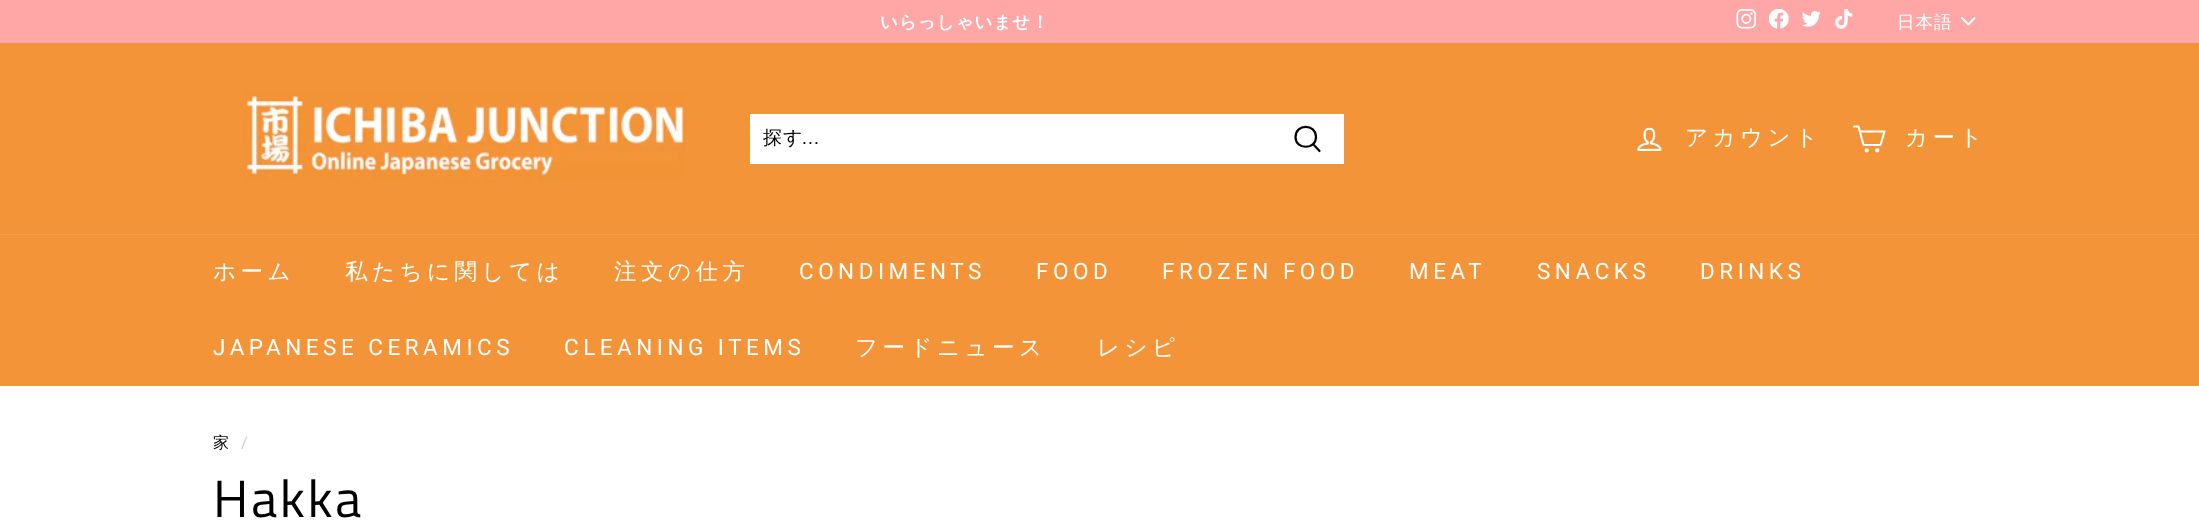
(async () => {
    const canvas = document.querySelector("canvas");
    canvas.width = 2199;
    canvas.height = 532;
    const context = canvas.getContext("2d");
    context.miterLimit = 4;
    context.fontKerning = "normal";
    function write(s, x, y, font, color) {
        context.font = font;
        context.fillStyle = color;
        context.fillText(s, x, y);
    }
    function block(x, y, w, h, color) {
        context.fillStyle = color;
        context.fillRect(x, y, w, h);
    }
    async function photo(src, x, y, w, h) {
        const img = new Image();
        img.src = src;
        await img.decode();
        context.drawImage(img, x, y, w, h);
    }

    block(0, 0, 2199, 532, "rgb(255, 255, 255)");
    block(0, 0, 2199, 43, "rgb(255, 166, 166)");
    context.letterSpacing = "1px";
    write("いらっしゃいませ！", 880, 28, "bold 17.5px WenQuanYi Zen Hei", "rgb(255, 255, 255)");
    await photo("media/1.png", 1736, 9, 20, 20);
    await photo("media/2.png", 1769, 9, 20, 20);
    await photo("media/3.png", 1802, 11, 19, 16);
    await photo("media/4.png", 1835, 9, 18, 20);
    write("日本語", 1897, 28, "500 17.5px WenQuanYi Zen Hei", "rgb(255, 255, 255)");
    context.beginPath();
    context.moveTo(1962, 18);
    context.lineTo(1968.5, 24.5);
    context.lineTo(1974.5, 18);
    context.strokeStyle = "rgb(255, 255, 255)";
    context.lineWidth = 2;
    context.lineCap = "round";
    context.lineJoin = "round";
    context.stroke();
    block(0, 41, 2199, 1, "rgb(255, 179, 179)");
    block(0, 43, 2199, 191, "rgb(243, 148, 56)");
    await photo("media/5.png", 243, 91, 443, 91);
    block(750, 114, 594, 50, "rgb(255, 255, 255)");
    context.save();
    context.beginPath();
    context.rect(763, 128, 501, 23);
    context.clip();
    write("探す", 763, 144, "500 19px WenQuanYi Zen Hei", "rgb(0, 0, 0)");
    context.restore();
    write("...", 802, 144, "19px Roboto", "rgb(0, 0, 0)");
    context.beginPath();
    context.moveTo(1316, 137);
    context.bezierCurveTo(1316, 150, 1295.5, 150, 1295.5, 137);
    context.bezierCurveTo(1295.5, 123.5, 1316, 123.5, 1316, 137);
    context.closePath();
    context.moveTo(1319.5, 151);
    context.lineTo(1313, 144);
    context.strokeStyle = "rgb(0, 0, 0)";
    context.lineWidth = 2.2;
    context.stroke();
    await photo("media/6.png", 1637, 127, 25, 24);
    context.letterSpacing = "4.5px";
    write("アカウント", 1685, 145, "500 22.5px WenQuanYi Zen Hei", "rgb(255, 255, 255)");
    context.beginPath();
    context.moveTo(1860, 131.5);
    context.lineTo(1884.5, 131.5);
    context.lineTo(1880.5, 145);
    context.lineTo(1863.5, 145);
    context.lineTo(1858.5, 126.5);
    context.lineTo(1854, 126.5);
    context.strokeStyle = "rgb(255, 255, 255)";
    context.lineWidth = 2.1;
    context.stroke();
    context.beginPath();
    context.arc(1866.7, 150.4, 1.1, 0, Math.PI * 2);
    context.stroke();
    context.beginPath();
    context.arc(1877.3, 150.4, 1.1, 0, Math.PI * 2);
    context.stroke();
    write("カート", 1905, 145, "500 22.5px WenQuanYi Zen Hei", "rgb(255, 255, 255)");
    block(0, 234, 2199, 1, "rgb(244, 159, 76)");
    block(0, 235, 2199, 151, "rgb(243, 148, 56)");
    write("ホーム", 213, 279, "500 22.5px WenQuanYi Zen Hei", "rgb(255, 255, 255)");
    write("私たちに関しては", 345, 279, "500 22.5px WenQuanYi Zen Hei", "rgb(255, 255, 255)");
    write("注文の仕方", 614, 279, "500 22.5px WenQuanYi Zen Hei", "rgb(255, 255, 255)");
    write("CONDIMENTS", 799, 279, "22.5px Roboto", "rgb(255, 255, 255)");
    write("FOOD", 1036, 279, "22.5px Roboto", "rgb(255, 255, 255)");
    write("FROZEN FOOD", 1162, 279, "22.5px Roboto", "rgb(255, 255, 255)");
    write("MEAT", 1409, 279, "22.5px Roboto", "rgb(255, 255, 255)");
    write("SNACKS", 1537, 279, "22.5px Roboto", "rgb(255, 255, 255)");
    write("DRINKS", 1700, 279, "22.5px Roboto", "rgb(255, 255, 255)");
    write("JAPANESE CERAMICS", 213, 355, "22.5px Roboto", "rgb(255, 255, 255)");
    write("CLEANING ITEMS", 564, 355, "22.5px Roboto", "rgb(255, 255, 255)");
    write("フードニュース", 855, 355, "500 22.5px WenQuanYi Zen Hei", "rgb(255, 255, 255)");
    write("レシピ", 1097, 355, "500 22.5px WenQuanYi Zen Hei", "rgb(255, 255, 255)");
    context.letterSpacing = "1px";
    write("家", 213, 448, "500 16px WenQuanYi Zen Hei", "rgb(0, 0, 0)");
    write("/", 241, 448, "16px Roboto", "rgb(204, 204, 204)");
    context.letterSpacing = "2.5px";
    write("Hakka", 213, 517, "52.5px Titillium Web", "rgb(0, 0, 0)");
})();
